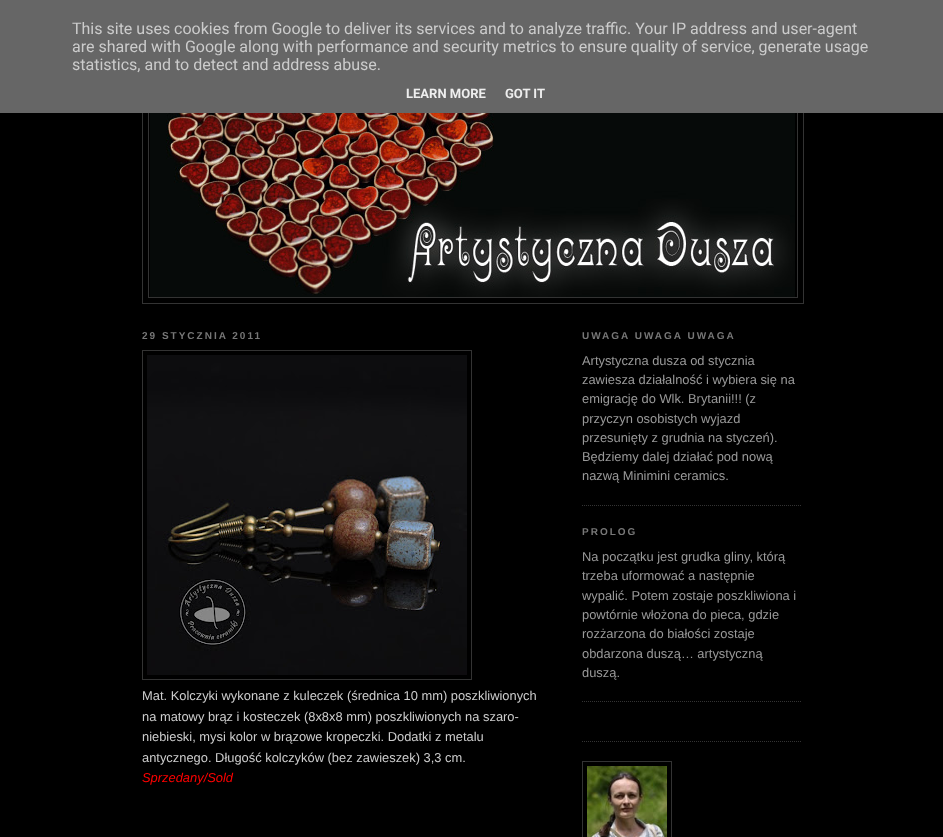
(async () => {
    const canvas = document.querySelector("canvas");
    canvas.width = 943;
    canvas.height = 837;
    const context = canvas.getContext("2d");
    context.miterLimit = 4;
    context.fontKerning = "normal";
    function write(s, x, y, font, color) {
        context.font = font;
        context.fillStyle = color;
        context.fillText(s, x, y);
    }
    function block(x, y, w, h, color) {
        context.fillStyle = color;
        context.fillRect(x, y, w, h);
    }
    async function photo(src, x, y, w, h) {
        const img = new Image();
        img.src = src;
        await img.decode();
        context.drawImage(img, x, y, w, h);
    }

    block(0, 0, 943, 837, "rgb(0, 0, 0)");
    context.strokeStyle = "rgb(51, 51, 51)";
    context.strokeRect(142.5, 40.5, 661, 263);
    context.strokeRect(148.5, 46.5, 649, 251);
    block(0, 0, 943, 113, "rgb(102, 102, 102)");
    write("This site uses cookies from Google to deliver its services and to analyze traffic. Your IP address and user-agent", 72, 34, "16px Roboto", "rgb(204, 204, 204)");
    write("are shared with Google along with performance and security metrics to ensure quality of service, generate usage", 72, 52, "16px Roboto", "rgb(204, 204, 204)");
    write("statistics, and to detect and address abuse.", 72, 70, "16px Roboto", "rgb(204, 204, 204)");
    write("LEARN MORE", 406, 98, "bold 13px Roboto", "rgb(238, 238, 238)");
    write("GOT IT", 505, 98, "bold 13px Roboto", "rgb(238, 238, 238)");
    await photo("media/1.png", 150, 113, 645, 184);
    context.letterSpacing = "2px";
    write("29 STYCZNIA 2011", 142, 339, "bold 10px Liberation Sans", "rgb(119, 119, 119)");
    context.strokeRect(142.5, 350.5, 329, 329);
    await photo("media/2.png", 147, 355, 320, 320);
    context.letterSpacing = "0px";
    write("Mat. Kolczyki wykonane z kuleczek (średnica 10 mm) poszkliwionych", 142, 700, "12.9px Liberation Sans", "rgb(204, 204, 204)");
    write("na matowy brąz i kosteczek (8x8x8 mm) poszkliwionych na szaro-", 142, 721, "12.9px Liberation Sans", "rgb(204, 204, 204)");
    write("niebieski, mysi kolor w brązowe kropeczki. Dodatki z metalu", 142, 741, "12.9px Liberation Sans", "rgb(204, 204, 204)");
    write("antycznego. Długość kolczyków (bez zawieszek) 3,3 cm.", 142, 762, "12.9px Liberation Sans", "rgb(204, 204, 204)");
    write("Sprzedany/Sold", 142, 782, "italic 12.9px Liberation Sans", "rgb(255, 0, 0)");
    context.beginPath();
    context.moveTo(582, 505.5);
    context.lineTo(802, 505.5);
    context.setLineDash([1, 1]);
    context.stroke();
    context.letterSpacing = "2px";
    write("UWAGA UWAGA UWAGA", 582, 339, "bold 10px Liberation Sans", "rgb(119, 119, 119)");
    context.letterSpacing = "0px";
    write("Artystyczna dusza od stycznia", 582, 365, "12.9px Liberation Sans", "rgb(153, 153, 153)");
    write("zawiesza działalność i wybiera się na", 582, 384, "12.9px Liberation Sans", "rgb(153, 153, 153)");
    write("emigrację do Wlk. Brytanii!!! (z", 582, 403, "12.9px Liberation Sans", "rgb(153, 153, 153)");
    write("przyczyn osobistych wyjazd", 582, 423, "12.9px Liberation Sans", "rgb(153, 153, 153)");
    write("przesunięty z grudnia na styczeń).", 582, 442, "12.9px Liberation Sans", "rgb(153, 153, 153)");
    write("Będziemy dalej działać pod nową", 582, 461, "12.9px Liberation Sans", "rgb(153, 153, 153)");
    write("nazwą Minimini ceramics.", 582, 480, "12.9px Liberation Sans", "rgb(153, 153, 153)");
    context.beginPath();
    context.moveTo(582, 701.5);
    context.lineTo(802, 701.5);
    context.stroke();
    context.letterSpacing = "2px";
    write("PROLOG", 582, 535, "bold 10px Liberation Sans", "rgb(119, 119, 119)");
    context.letterSpacing = "0px";
    write("Na początku jest grudka gliny, którą", 582, 561, "12.9px Liberation Sans", "rgb(153, 153, 153)");
    write("trzeba uformować a następnie", 582, 580, "12.9px Liberation Sans", "rgb(153, 153, 153)");
    write("wypalić. Potem zostaje poszkliwiona i", 582, 600, "12.9px Liberation Sans", "rgb(153, 153, 153)");
    write("powtórnie włożona do pieca, gdzie", 582, 619, "12.9px Liberation Sans", "rgb(153, 153, 153)");
    write("rozżarzona do białości zostaje", 582, 638, "12.9px Liberation Sans", "rgb(153, 153, 153)");
    write("obdarzona duszą… artystyczną", 582, 658, "12.9px Liberation Sans", "rgb(153, 153, 153)");
    write("duszą.", 582, 677, "12.9px Liberation Sans", "rgb(153, 153, 153)");
    context.beginPath();
    context.moveTo(582, 741.5);
    context.lineTo(802, 741.5);
    context.stroke();
    context.setLineDash([]);
    context.strokeRect(582.5, 761.5, 89, 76);
    await photo("media/3.png", 587, 766, 80, 71);
})();
